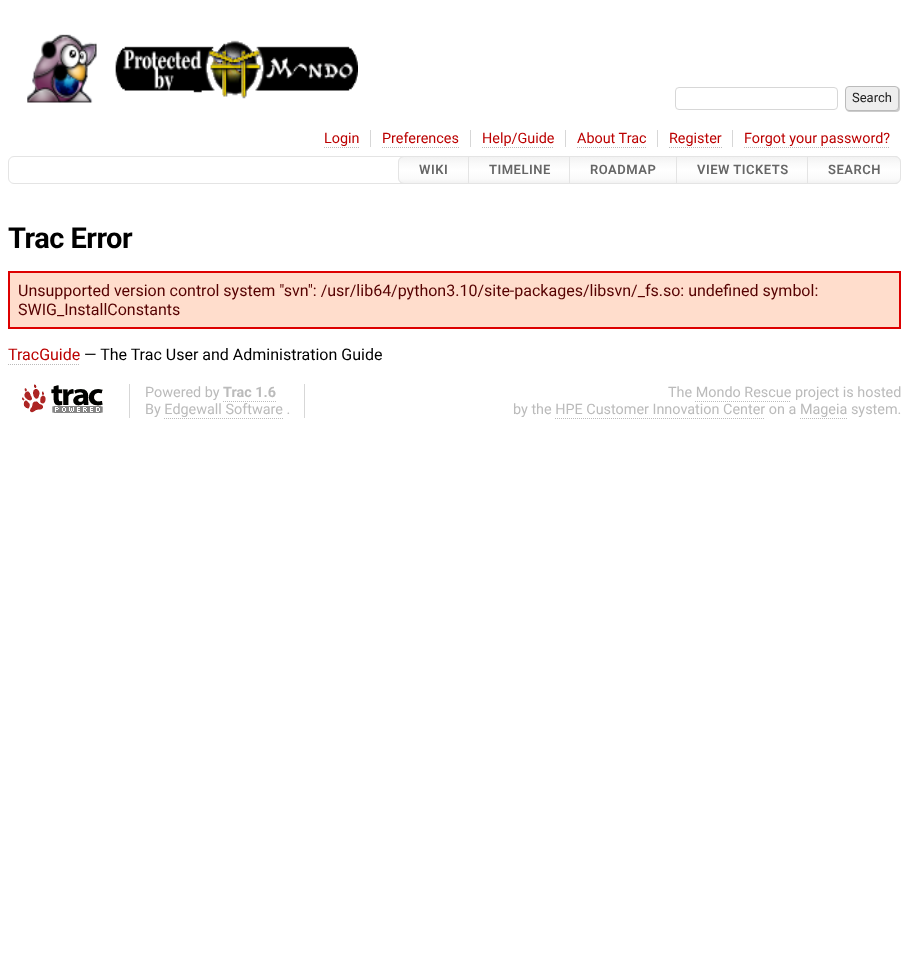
(async () => {
    const canvas = document.querySelector("canvas");
    canvas.width = 909;
    canvas.height = 957;
    const context = canvas.getContext("2d");
    context.miterLimit = 4;
    context.fontKerning = "normal";
    function write(s, x, y, font, color) {
        context.font = font;
        context.fillStyle = color;
        context.fillText(s, x, y);
    }
    function block(x, y, w, h, color) {
        context.fillStyle = color;
        context.fillRect(x, y, w, h);
    }
    async function photo(src, x, y, w, h) {
        const img = new Image();
        img.src = src;
        await img.decode();
        context.drawImage(img, x, y, w, h);
    }
    let gradient;

    block(0, 0, 909, 957, "rgb(255, 255, 255)");
    await photo("media/1.png", 27, 34, 331, 69);
    context.beginPath();
    context.roundRect(675.5, 87.5, 162, 22, 3.5);
    context.strokeStyle = "rgb(215, 215, 215)";
    context.stroke();
    context.fillStyle = "rgb(204, 204, 204)";
    context.filter = "blur(0.5px)";
    context.beginPath();
    context.roundRect(846, 87, 54, 25, 4);
    context.fill();
    context.filter = "none";
    context.fillStyle = "rgb(238, 238, 238)";
    context.beginPath();
    context.roundRect(845.5, 86.5, 53, 24, 3.5);
    context.fill();
    context.strokeStyle = "rgb(187, 187, 187)";
    context.stroke();
    write("Search", 852, 102, "13px Roboto", "rgb(34, 34, 34)");
    block(370, 130, 1, 17, "rgb(215, 215, 215)");
    write("Login", 324, 143, "14.4px Roboto", "rgb(187, 0, 0)");
    context.beginPath();
    context.moveTo(324, 147.5);
    context.lineTo(360, 147.5);
    context.setLineDash([1, 1]);
    context.stroke();
    block(470, 130, 1, 17, "rgb(215, 215, 215)");
    write("Preferences", 382, 143, "14.4px Roboto", "rgb(187, 0, 0)");
    context.beginPath();
    context.moveTo(382, 147.5);
    context.lineTo(459, 147.5);
    context.stroke();
    block(565, 130, 1, 17, "rgb(215, 215, 215)");
    write("Help/Guide", 482, 143, "14.4px Roboto", "rgb(187, 0, 0)");
    context.beginPath();
    context.moveTo(482, 147.5);
    context.lineTo(554, 147.5);
    context.stroke();
    block(657, 130, 1, 17, "rgb(215, 215, 215)");
    write("About Trac", 577, 143, "14.4px Roboto", "rgb(187, 0, 0)");
    context.beginPath();
    context.moveTo(577, 147.5);
    context.lineTo(646, 147.5);
    context.stroke();
    block(732, 130, 1, 17, "rgb(215, 215, 215)");
    write("Register", 669, 143, "14.4px Roboto", "rgb(187, 0, 0)");
    context.beginPath();
    context.moveTo(669, 147.5);
    context.lineTo(722, 147.5);
    context.stroke();
    write("Forgot your password?", 744, 143, "14.4px Roboto", "rgb(187, 0, 0)");
    context.beginPath();
    context.moveTo(744, 147.5);
    context.lineTo(890, 147.5);
    context.stroke();
    context.beginPath();
    context.roundRect(8.5, 156.5, 892, 27, 5.5);
    context.strokeStyle = "rgb(228, 228, 228)";
    context.setLineDash([]);
    context.stroke();
    context.save();
    context.beginPath();
    context.roundRect(398, 156, 71, 28, [6, 0, 0, 6]);
    context.clip();
    gradient = context.createLinearGradient(434, 157, 434, 183);
    gradient.addColorStop(0, "rgb(242, 242, 242)");
    gradient.addColorStop(0.25, "rgb(250, 250, 250)");
    gradient.addColorStop(0.49, "rgb(254, 254, 254)");
    gradient.addColorStop(0.51, "rgb(255, 255, 255)");
    gradient.addColorStop(0.85, "rgb(250, 250, 250)");
    gradient.addColorStop(1, "rgb(242, 242, 242)");
    context.fillStyle = gradient;
    context.fillRect(398, 157, 70, 26);
    context.restore();
    context.beginPath();
    context.roundRect(398.5, 156.5, 70, 27, [5.5, 0, 0, 5.5]);
    context.stroke();
    context.letterSpacing = "0.5px";
    write("WIKI", 419, 174, "600 13px Roboto", "rgb(102, 102, 102)");
    gradient = context.createLinearGradient(520, 157, 520, 183);
    gradient.addColorStop(0, "rgb(242, 242, 242)");
    gradient.addColorStop(0.25, "rgb(250, 250, 250)");
    gradient.addColorStop(0.49, "rgb(254, 254, 254)");
    gradient.addColorStop(0.51, "rgb(255, 255, 255)");
    gradient.addColorStop(0.85, "rgb(250, 250, 250)");
    gradient.addColorStop(1, "rgb(242, 242, 242)");
    context.fillStyle = gradient;
    context.fillRect(469, 157, 100, 26);
    context.strokeRect(468.5, 156.5, 102, 27);
    write("TIMELINE", 489, 174, "600 13px Roboto", "rgb(102, 102, 102)");
    gradient = context.createLinearGradient(623, 157, 623, 183);
    gradient.addColorStop(0, "rgb(242, 242, 242)");
    gradient.addColorStop(0.25, "rgb(250, 250, 250)");
    gradient.addColorStop(0.49, "rgb(254, 254, 254)");
    gradient.addColorStop(0.51, "rgb(255, 255, 255)");
    gradient.addColorStop(0.85, "rgb(250, 250, 250)");
    gradient.addColorStop(1, "rgb(242, 242, 242)");
    context.fillStyle = gradient;
    context.fillRect(570, 157, 106, 26);
    context.strokeRect(569.5, 156.5, 107, 27);
    write("ROADMAP", 590, 174, "600 13px Roboto", "rgb(102, 102, 102)");
    gradient = context.createLinearGradient(742, 157, 742, 183);
    gradient.addColorStop(0, "rgb(242, 242, 242)");
    gradient.addColorStop(0.25, "rgb(250, 250, 250)");
    gradient.addColorStop(0.49, "rgb(254, 254, 254)");
    gradient.addColorStop(0.51, "rgb(255, 255, 255)");
    gradient.addColorStop(0.85, "rgb(250, 250, 250)");
    gradient.addColorStop(1, "rgb(242, 242, 242)");
    context.fillStyle = gradient;
    context.fillRect(677, 157, 130, 26);
    context.strokeRect(676.5, 156.5, 131, 27);
    write("VIEW TICKETS", 697, 174, "600 13px Roboto", "rgb(102, 102, 102)");
    context.save();
    context.beginPath();
    context.roundRect(807, 156, 94, 28, [0, 6, 6, 0]);
    context.clip();
    gradient = context.createLinearGradient(854, 157, 854, 183);
    gradient.addColorStop(0, "rgb(242, 242, 242)");
    gradient.addColorStop(0.25, "rgb(250, 250, 250)");
    gradient.addColorStop(0.49, "rgb(254, 254, 254)");
    gradient.addColorStop(0.51, "rgb(255, 255, 255)");
    gradient.addColorStop(0.85, "rgb(250, 250, 250)");
    gradient.addColorStop(1, "rgb(242, 242, 242)");
    context.fillStyle = gradient;
    context.fillRect(808, 157, 93, 26);
    context.restore();
    context.beginPath();
    context.roundRect(807.5, 156.5, 93, 27, [0, 5.5, 5.5, 0]);
    context.stroke();
    write("SEARCH", 828, 174, "600 13px Roboto", "rgb(102, 102, 102)");
    context.letterSpacing = "-0.5px";
    write("Trac Error", 8, 248, "bold 29px Roboto", "rgb(0, 0, 0)");
    context.fillStyle = "rgb(255, 221, 204)";
    context.beginPath();
    context.rect(9, 272, 891, 56);
    context.fill();
    context.strokeStyle = "rgb(221, 0, 0)";
    context.lineWidth = 2;
    context.stroke();
    context.letterSpacing = "0px";
    write("Unsupported version control system \"svn\": /usr/lib64/python3.10/site-packages/libsvn/_fs.so: undefined symbol:", 18, 296, "16px Roboto", "rgb(85, 0, 0)");
    write("SWIG_InstallConstants", 18, 315, "16px Roboto", "rgb(85, 0, 0)");
    write("TracGuide", 8, 360, "16px Roboto", "rgb(187, 0, 0)");
    context.beginPath();
    context.moveTo(8, 364.5);
    context.lineTo(80, 364.5);
    context.strokeStyle = "rgb(187, 187, 187)";
    context.lineWidth = 1;
    context.setLineDash([1, 1]);
    context.stroke();
    write("— The Trac User and Administration Guide", 84, 360, "16px Roboto", "rgb(0, 0, 0)");
    await photo("media/2.png", 22, 384, 81, 29);
    block(304, 384, 1, 34, "rgb(215, 215, 215)");
    block(129, 384, 1, 34, "rgb(215, 215, 215)");
    write("Powered by", 145, 397, "14.4px Roboto", "rgb(187, 187, 187)");
    write("Trac 1.6", 223, 397, "bold 14.4px Roboto", "rgb(187, 187, 187)");
    context.beginPath();
    context.moveTo(223, 401.5);
    context.lineTo(276, 401.5);
    context.stroke();
    write("By Edgewall Software .", 145, 414, "14.4px Roboto", "rgb(187, 187, 187)");
    context.beginPath();
    context.moveTo(164, 418.5);
    context.lineTo(283, 418.5);
    context.stroke();
    write("The Mondo Rescue project is hosted", 668, 397, "14.4px Roboto", "rgb(187, 187, 187)");
    context.beginPath();
    context.moveTo(695, 401.5);
    context.lineTo(791, 401.5);
    context.stroke();
    write("by the HPE Customer Innovation Center on a Mageia system.", 513, 414, "14.4px Roboto", "rgb(187, 187, 187)");
    context.beginPath();
    context.moveTo(555, 418.5);
    context.lineTo(765, 418.5);
    context.stroke();
    context.beginPath();
    context.moveTo(800, 418.5);
    context.lineTo(847, 418.5);
    context.stroke();
})();
